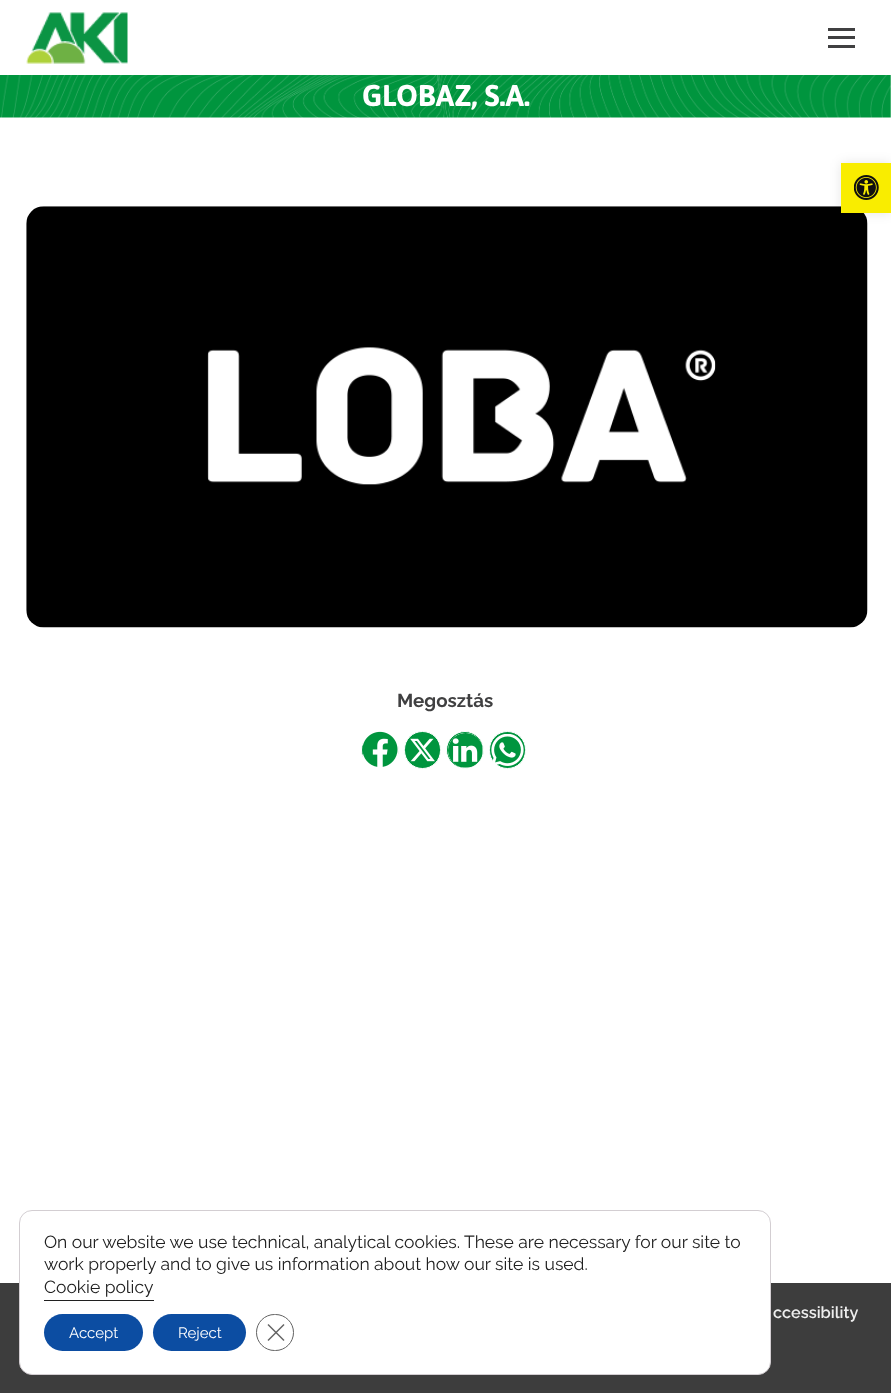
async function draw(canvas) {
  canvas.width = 891
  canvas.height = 1393
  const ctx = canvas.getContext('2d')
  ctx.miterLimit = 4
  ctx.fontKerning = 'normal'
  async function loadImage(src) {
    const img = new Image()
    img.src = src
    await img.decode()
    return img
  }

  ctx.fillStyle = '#fff'
  ctx.fillRect(0, 0, 891, 1393)
  ctx.drawImage(await loadImage('image0.png'), 26, 12, 102, 52)
  ctx.fillStyle = '#404041'
  ctx.fillRect(828, 28, 27, 3)
  ctx.fillRect(828, 36, 27, 3)
  ctx.fillRect(828, 45, 27, 3)
  ctx.drawImage(await loadImage('image1.png'), 0, 75, 891, 43)
  ctx.font = 'bold 30px Asap'
  ctx.fillStyle = '#fff'
  ctx.fillText('GLOBAZ, S.A.', 362, 106)
  ctx.drawImage(await loadImage('image2.png'), 26, 206, 842, 422)
  ctx.font = 'bold 18.75px Raleway'
  ctx.fillStyle = '#404041'
  ctx.fillText('Megosztás', 397, 707)
  ctx.fillStyle = '#00953e'
  ctx.beginPath()
  ctx.arc(380, 750, 18.5, 0, 2 * Math.PI)
  ctx.fill()
  ctx.strokeStyle = '#fff'
  ctx.stroke()
  ctx.fillStyle = '#fff'
  ctx.fillRect(363, 731, 35, 38)
  ctx.drawImage(await loadImage('image3.png'), 363, 731, 35, 36)
  ctx.fillStyle = '#00953e'
  ctx.beginPath()
  ctx.roundRect(404.5, 731.5, 36, 37, 18)
  ctx.fill()
  ctx.stroke()
  ctx.drawImage(await loadImage('image4.png'), 410, 738, 25, 24)
  ctx.beginPath()
  ctx.arc(465, 750, 18.5, 0, 2 * Math.PI)
  ctx.fill()
  ctx.stroke()
  ctx.fillStyle = '#fff'
  ctx.beginPath()
  ctx.arc(465.5, 750.5, 17.5, 0, 2 * Math.PI)
  ctx.fill()
  ctx.drawImage(await loadImage('image5.png'), 448, 733, 35, 35)
  ctx.fillStyle = '#00953e'
  ctx.beginPath()
  ctx.roundRect(489.5, 731.5, 36, 37, 18)
  ctx.fill()
  ctx.stroke()
  ctx.drawImage(await loadImage('image6.png'), 491, 734, 33, 32)
  ctx.fillStyle = '#3d3d3d'
  ctx.fillRect(0, 1283, 891, 110)
  ctx.font = '600 16.25px Raleway'
  ctx.fillStyle = '#eee'
  ctx.fillText('ccessibility', 773, 1318)
  ctx.fillStyle = '#0000001a'
  ctx.filter = 'blur(6px)'
  ctx.beginPath()
  ctx.rect(841, 163, 50, 50)
  ctx.fill()
  ctx.filter = 'none'
  ctx.fillStyle = '#f9ed00'
  ctx.fillRect(841, 163, 50, 50)
  ctx.drawImage(await loadImage('image7.png'), 854, 175, 25, 25)
  ctx.fillStyle = '#fff'
  ctx.beginPath()
  ctx.roundRect(19.5, 1210.5, 751, 164, 12.5)
  ctx.fill()
  ctx.strokeStyle = '#d3ced2'
  ctx.stroke()
  ctx.font = '17.5px Raleway'
  ctx.fillStyle = '#202020'
  ctx.fillText('On our website we use technical, analytical cookies. These are necessary for our site to', 44, 1248)
  ctx.fillText('work properly and to give us information about how our site is used.', 44, 1270)
  ctx.fillText('Cookie policy', 44, 1293)
  ctx.fillRect(44, 1300, 110, 1)
  ctx.fillStyle = '#0c4da2'
  ctx.beginPath()
  ctx.roundRect(44, 1314, 99, 37, 18.5)
  ctx.fill()
  ctx.font = '15px Raleway'
  ctx.fillStyle = '#fff'
  ctx.fillText('Accept', 69, 1338)
  ctx.fillStyle = '#0c4da2'
  ctx.beginPath()
  ctx.roundRect(153, 1314, 93, 37, 18.5)
  ctx.fill()
  ctx.fillStyle = '#fff'
  ctx.fillText('Reject', 178, 1338)
  ctx.beginPath()
  ctx.roundRect(256.5, 1314.5, 37, 36, 18)
  ctx.strokeStyle = '#626262'
  ctx.stroke()
  ctx.fillStyle = '#626262'
  ctx.beginPath()
  ctx.moveTo(283.5, 1324)
  ctx.lineTo(284.5, 1325)
  ctx.lineTo(268.5, 1341)
  ctx.lineTo(267.5, 1340)
  ctx.closePath()
  ctx.fill()
  ctx.beginPath()
  ctx.moveTo(267.5, 1325)
  ctx.lineTo(268.5, 1324)
  ctx.lineTo(284.5, 1340)
  ctx.lineTo(283.5, 1341)
  ctx.closePath()
  ctx.fill()
}

draw(document.querySelector('canvas'))
